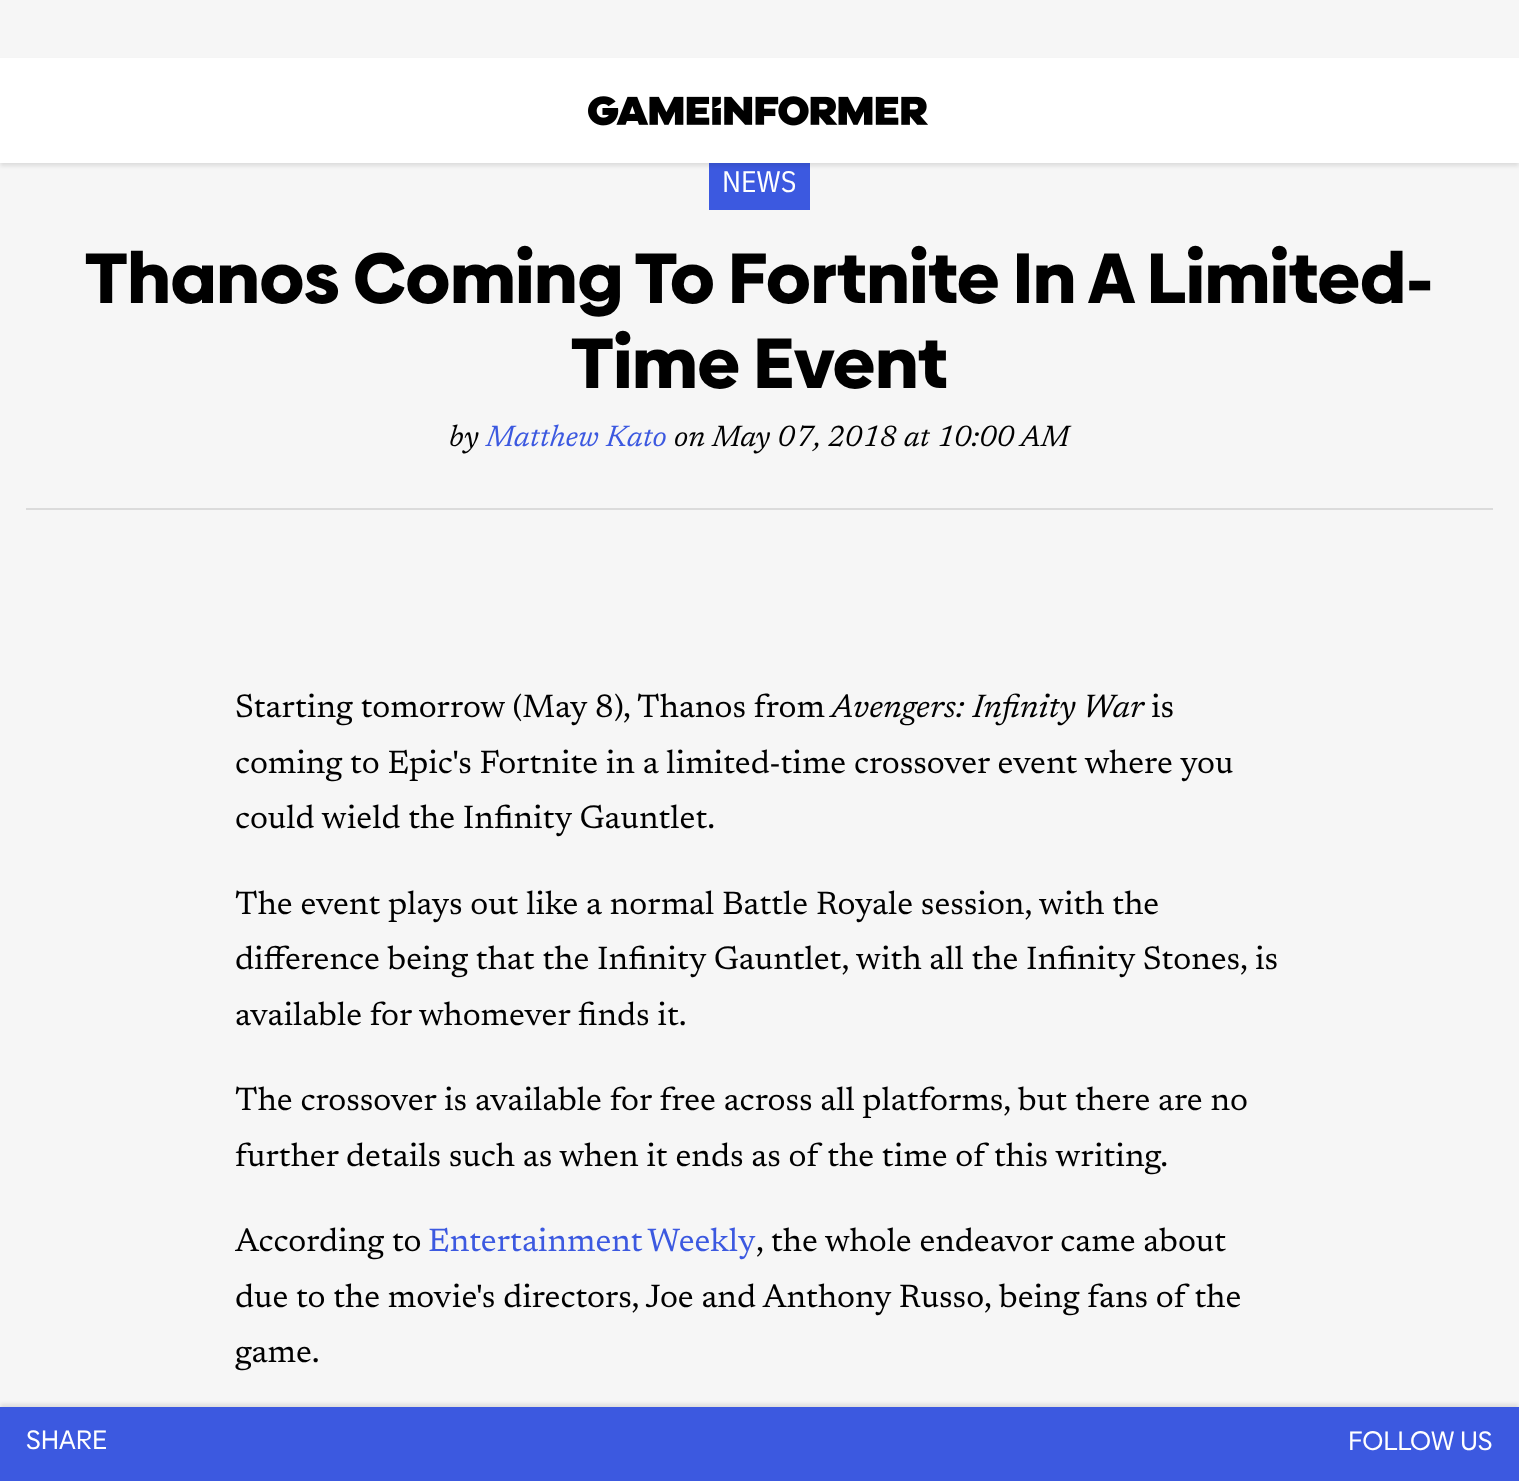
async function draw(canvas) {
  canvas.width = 1519
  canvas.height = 1481
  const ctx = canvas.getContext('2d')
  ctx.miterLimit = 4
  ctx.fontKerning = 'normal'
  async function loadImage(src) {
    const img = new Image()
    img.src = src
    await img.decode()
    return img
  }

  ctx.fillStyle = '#f6f6f6'
  ctx.fillRect(0, 0, 1519, 1481)
  ctx.fillStyle = '#3c59e0'
  ctx.fillRect(709, 163, 101, 47)
  ctx.fillStyle = '#0000001a'
  ctx.filter = 'blur(2px)'
  ctx.beginPath()
  ctx.rect(0, 61, 1519, 105)
  ctx.fill()
  ctx.filter = 'none'
  ctx.fillStyle = '#fff'
  ctx.fillRect(0, 58, 1519, 105)
  ctx.drawImage(await loadImage('image0.png'), 588, 96, 340, 30)
  ctx.font = '29.75px IBM Plex Sans Condensed'
  ctx.fillText('NEWS', 722, 192)
  ctx.font = '900 71.4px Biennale'
  ctx.fillStyle = '#000'
  ctx.fillText('Thanos Coming To Fortnite In A Limited-', 85, 303)
  ctx.fillText('Time Event', 571, 388)
  ctx.fillStyle = '#dbdbdb'
  ctx.fillRect(26, 508, 1467, 2)
  ctx.font = 'italic 29.75px Newsreader'
  ctx.fillStyle = '#000'
  ctx.fillText('by', 449, 446)
  ctx.fillStyle = '#3c59e0'
  ctx.fillText('Matthew Kato', 486, 446)
  ctx.fillStyle = '#000'
  ctx.fillText('on May 07, 2018 at 10:00 AM', 674, 446)
  ctx.font = '32.75px Newsreader'
  ctx.fillText('Starting tomorrow (May 8), Thanos from', 235, 717)
  ctx.font = 'italic 32.75px Newsreader'
  ctx.fillText('Avengers: Infinity War', 831, 717)
  ctx.font = '32.75px Newsreader'
  ctx.fillText('is', 1151, 717)
  ctx.fillText('coming to Epic\'s Fortnite in a limited-time crossover event where you', 235, 773)
  ctx.fillText('could wield the Infinity Gauntlet.', 235, 828)
  ctx.fillText('The event plays out like a normal Battle Royale session, with the', 235, 914)
  ctx.fillText('difference being that the Infinity Gauntlet, with all the Infinity Stones, is', 235, 969)
  ctx.fillText('available for whomever finds it.', 235, 1025)
  ctx.fillText('The crossover is available for free across all platforms, but there are no', 235, 1110)
  ctx.fillText('further details such as when it ends as of the time of this writing.', 235, 1166)
  ctx.fillText('According to', 235, 1251)
  ctx.wordSpacing = '-2px'
  ctx.fillStyle = '#3c59e0'
  ctx.fillText('Entertainment Weekly', 428, 1251)
  ctx.wordSpacing = '0px'
  ctx.fillStyle = '#000'
  ctx.fillText(', the whole endeavor came about', 756, 1251)
  ctx.fillText('due to the movie\'s directors, Joe and Anthony Russo, being fans of the', 235, 1307)
  ctx.fillText('game.', 235, 1362)
  ctx.fillStyle = '#0000001a'
  ctx.filter = 'blur(2px)'
  ctx.beginPath()
  ctx.rect(0, 1404, 1519, 75)
  ctx.fill()
  ctx.filter = 'none'
  ctx.fillStyle = '#3c59e0'
  ctx.fillRect(0, 1407, 1519, 74)
  ctx.font = '26.75px Biennale'
  ctx.fillStyle = '#fff'
  ctx.fillText('SHARE', 26, 1449)
  ctx.fillText('FOLLOW US', 1348, 1450)
}

draw(document.querySelector('canvas'))
